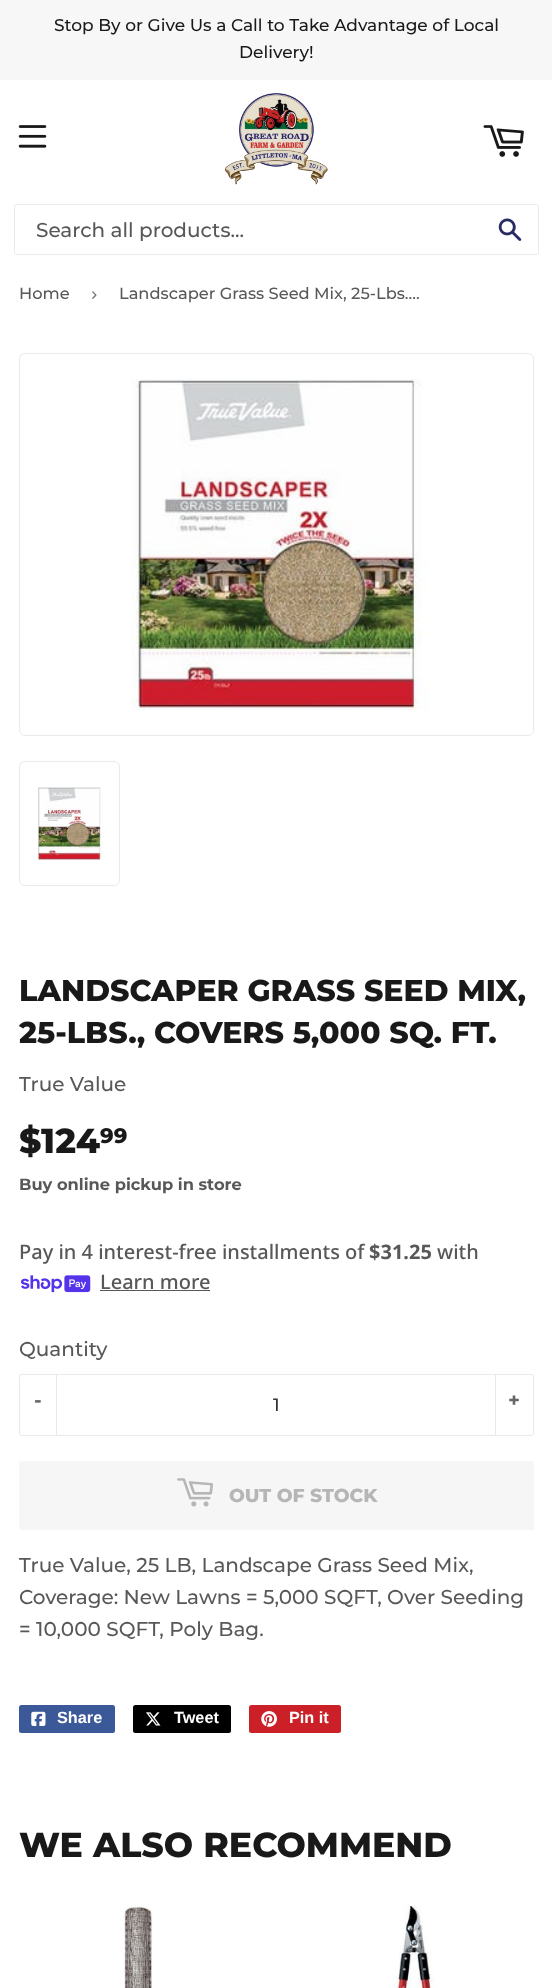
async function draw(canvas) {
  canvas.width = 552
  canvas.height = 1988
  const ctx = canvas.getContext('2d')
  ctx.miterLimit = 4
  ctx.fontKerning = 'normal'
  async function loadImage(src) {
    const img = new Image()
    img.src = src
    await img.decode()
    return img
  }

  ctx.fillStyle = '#fff'
  ctx.fillRect(0, 0, 552, 1988)
  ctx.fillStyle = '#f7f7f7'
  ctx.fillRect(0, 0, 552, 80)
  ctx.font = '500 17px Montserrat'
  ctx.fillStyle = '#191919'
  ctx.fillText('Stop By or Give Us a Call to Take Advantage of Local', 54, 31)
  ctx.fillText('Delivery!', 239, 58)
  ctx.drawImage(await loadImage('image0.png'), 18, 125, 29, 23)
  ctx.drawImage(await loadImage('image1.png'), 225, 93, 103, 92)
  ctx.drawImage(await loadImage('image2.png'), 483, 125, 41, 32)
  ctx.beginPath()
  ctx.roundRect(14.5, 204.5, 524, 50, 2)
  ctx.strokeStyle = '#eaeaea'
  ctx.stroke()
  ctx.font = '500 20px Montserrat'
  ctx.fillStyle = '#585858'
  ctx.fillText('Search all products...', 36, 237)
  ctx.drawImage(await loadImage('image3.png'), 498, 218, 24, 23)
  ctx.font = '500 16.25px Montserrat'
  ctx.fillText('Home', 19, 299)
  ctx.font = '18.75px Liberation Sans'
  ctx.fillStyle = '#767676'
  ctx.fillText('›', 91, 300)
  ctx.font = '500 16.25px Montserrat'
  ctx.fillStyle = '#585858'
  ctx.fillText('Landscaper Grass Seed Mix, 25-Lbs.…', 119, 299)
  ctx.beginPath()
  ctx.roundRect(19.5, 353.5, 514, 382, 5.5)
  ctx.stroke()
  ctx.drawImage(await loadImage('image4.png'), 131, 379, 298, 331)
  ctx.beginPath()
  ctx.roundRect(19.5, 761.5, 100, 124, 5.5)
  ctx.stroke()
  ctx.drawImage(await loadImage('image5.png'), 37, 787, 66, 73)
  ctx.font = '800 30px Montserrat'
  ctx.fillStyle = '#191919'
  ctx.fillText('LANDSCAPER GRASS SEED MIX,', 19, 1001)
  ctx.fillText('25-LBS., COVERS 5,000 SQ. FT.', 19, 1043)
  ctx.font = '500 20px Montserrat'
  ctx.fillStyle = '#585858'
  ctx.fillText('True Value', 19, 1091)
  ctx.font = '800 34.7px Montserrat'
  ctx.fillStyle = '#191919'
  ctx.fillText('$124', 19, 1153)
  ctx.font = '800 21px Montserrat'
  ctx.fillText('99', 100, 1143)
  ctx.font = 'bold 16.25px Montserrat'
  ctx.fillStyle = '#585858'
  ctx.fillText('Buy online pickup in store', 19, 1190)
  ctx.font = '500 20px Noto Sans'
  ctx.fillText('Pay in 4 interest-free installments of', 19, 1259)
  ctx.font = 'bold 20px Noto Sans'
  ctx.fillText('$31.25', 369, 1259)
  ctx.font = '500 20px Noto Sans'
  ctx.fillText('with', 437, 1259)
  ctx.drawImage(await loadImage('image6.png'), 21, 1275, 70, 18)
  ctx.fillText('Learn more', 100, 1289)
  ctx.fillRect(100, 1290, 110, 1)
  ctx.font = '500 20px Montserrat'
  ctx.fillText('Quantity', 19, 1356)
  ctx.beginPath()
  ctx.roundRect(19.5, 1374.5, 514, 61, 2)
  ctx.strokeStyle = '#e9e9e9'
  ctx.stroke()
  ctx.fillStyle = '#e9e9e9'
  ctx.fillRect(56, 1375, 1, 60)
  ctx.font = 'bold 20px Montserrat'
  ctx.fillStyle = '#666'
  ctx.fillText('-', 34, 1407)
  ctx.font = '500 18px Montserrat'
  ctx.fillStyle = '#333'
  ctx.fillText('1', 273, 1411)
  ctx.fillStyle = '#e9e9e9'
  ctx.fillRect(495, 1375, 1, 60)
  ctx.font = 'bold 20px Montserrat'
  ctx.fillStyle = '#666'
  ctx.fillText('+', 508, 1407)
  ctx.fillStyle = '#f6f6f6'
  ctx.beginPath()
  ctx.roundRect(19, 1461, 515, 69, 2.5)
  ctx.fill()
  ctx.drawImage(await loadImage('image7.png'), 177, 1478, 36, 29)
  ctx.font = '800 18.75px Montserrat'
  ctx.fillStyle = '#b6b6b6'
  ctx.fillText('OUT OF STOCK', 229, 1502)
  ctx.font = '500 20px Montserrat'
  ctx.fillStyle = '#585858'
  ctx.fillText('True Value, 25 LB, Landscape Grass Seed Mix,', 19, 1572)
  ctx.fillText('Coverage: New Lawns = 5,000 SQFT, Over Seeding', 19, 1604)
  ctx.fillText('= 10,000 SQFT, Poly Bag.', 19, 1636)
  ctx.fillStyle = '#3b5998'
  ctx.beginPath()
  ctx.roundRect(19, 1705, 96, 28, 2.5)
  ctx.fill()
  ctx.drawImage(await loadImage('image8.png'), 31, 1711, 15, 15)
  ctx.font = 'bold 16.25px Liberation Sans'
  ctx.fillStyle = '#fff'
  ctx.fillText('Share', 57, 1723)
  ctx.fillStyle = '#000'
  ctx.beginPath()
  ctx.roundRect(133, 1705, 98, 28, 2.5)
  ctx.fill()
  ctx.drawImage(await loadImage('image9.png'), 146, 1712, 15, 14)
  ctx.fillStyle = '#fff'
  ctx.fillText('Tweet', 174, 1723)
  ctx.fillStyle = '#cb2027'
  ctx.beginPath()
  ctx.roundRect(249, 1705, 92, 28, 2.5)
  ctx.fill()
  ctx.drawImage(await loadImage('image10.png'), 261, 1711, 16, 16)
  ctx.fillStyle = '#fff'
  ctx.fillText('Pin it', 289, 1723)
  ctx.font = '800 34.7px Montserrat'
  ctx.fillStyle = '#191919'
  ctx.fillText('WE ALSO RECOMMEND', 19, 1857)
  ctx.drawImage(await loadImage('image11.png'), 123, 1906, 30, 82)
  ctx.drawImage(await loadImage('image12.png'), 394, 1906, 41, 82)
}

draw(document.querySelector('canvas'))
